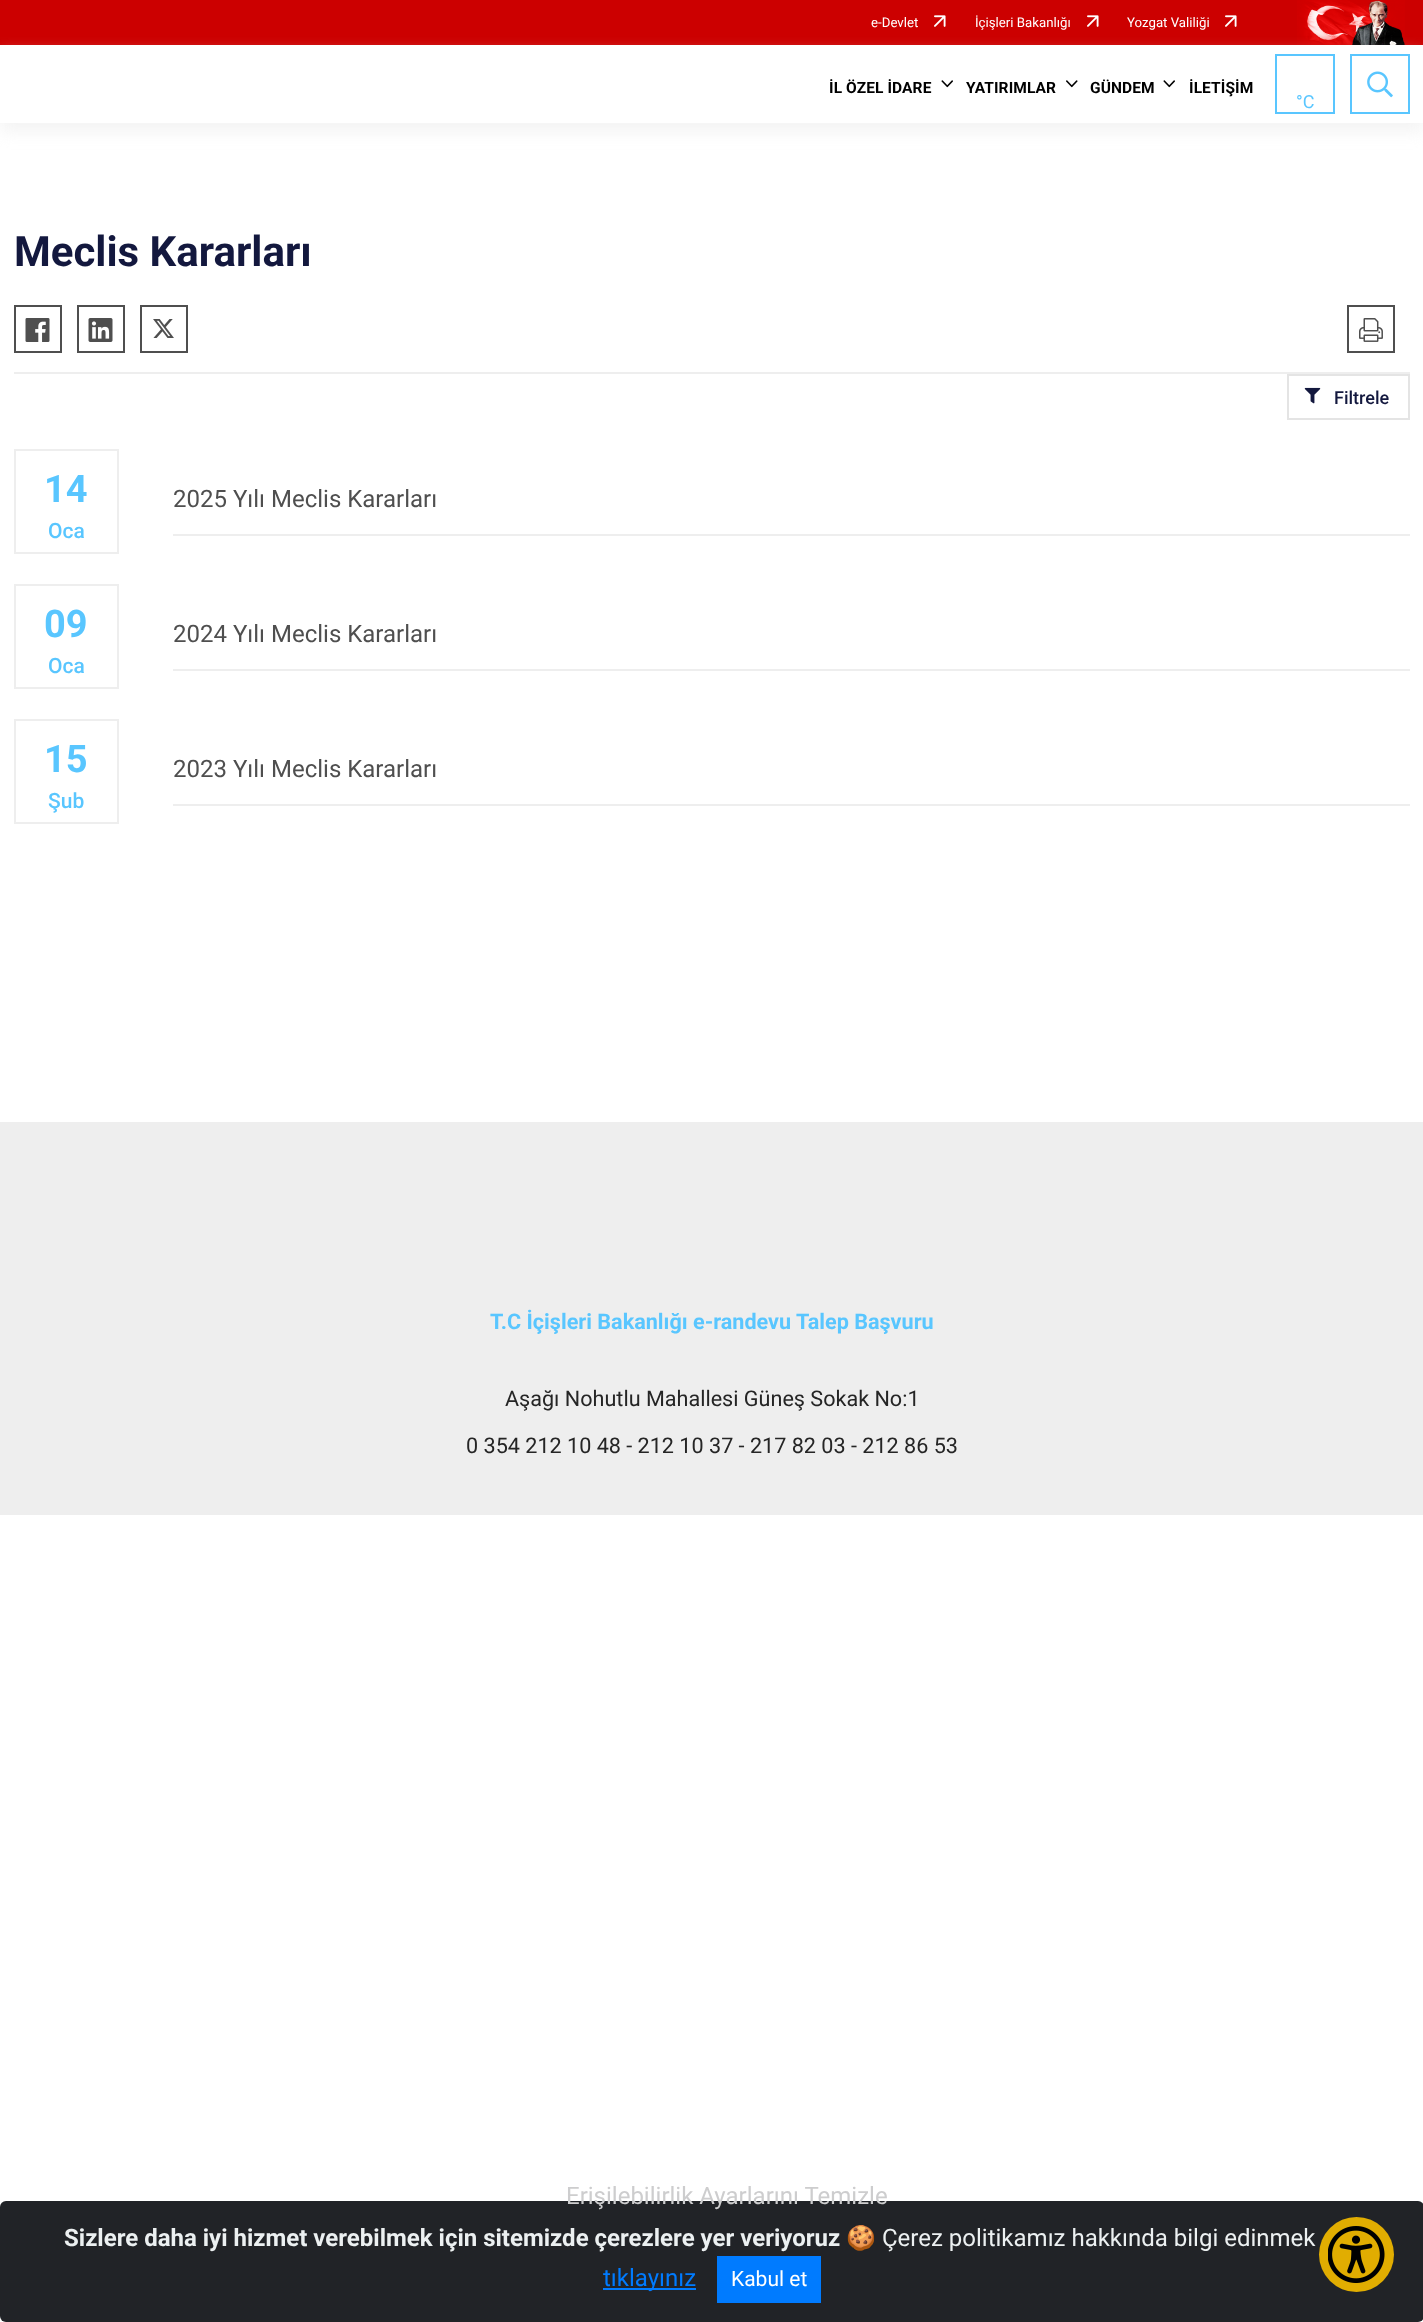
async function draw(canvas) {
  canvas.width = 1423
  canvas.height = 2322
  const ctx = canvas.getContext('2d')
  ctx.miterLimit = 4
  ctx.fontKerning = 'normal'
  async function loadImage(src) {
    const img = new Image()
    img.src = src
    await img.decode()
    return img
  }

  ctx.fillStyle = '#fff'
  ctx.fillRect(0, 0, 1423, 2322)
  ctx.fillStyle = '#c00'
  ctx.fillRect(0, 0, 1423, 45)
  ctx.font = '13.25px Roboto'
  ctx.fillStyle = '#fff'
  ctx.fillText('e-Devlet', 871, 27)
  ctx.drawImage(await loadImage('image0.png'), 934, 15, 12, 12)
  ctx.fillText('İçişleri Bakanlığı', 975, 27)
  ctx.drawImage(await loadImage('image0.png'), 1087, 15, 12, 12)
  ctx.fillText('Yozgat Valiliği', 1127, 27)
  ctx.drawImage(await loadImage('image0.png'), 1225, 15, 12, 12)
  ctx.drawImage(await loadImage('image1.png'), 1297, 0, 108, 45)
  ctx.save()
  ctx.beginPath()
  ctx.moveTo(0, 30)
  ctx.lineTo(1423, 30)
  ctx.lineTo(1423, 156)
  ctx.lineTo(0, 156)
  ctx.closePath()
  ctx.moveTo(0, 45)
  ctx.lineTo(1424, 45)
  ctx.lineTo(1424, 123)
  ctx.lineTo(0, 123)
  ctx.closePath()
  ctx.clip('evenodd')
  ctx.fillStyle = '#eeeeee9e'
  ctx.filter = 'blur(7.5px)'
  ctx.beginPath()
  ctx.rect(0, 54, 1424, 78)
  ctx.fill()
  ctx.filter = 'none'
  ctx.restore()
  ctx.letterSpacing = '0.1px'
  ctx.font = 'bold 15.5px Roboto'
  ctx.fillStyle = '#000'
  ctx.fillText('İL ÖZEL İDARE', 829, 93)
  ctx.drawImage(await loadImage('image2.png'), 941, 80, 12, 8)
  ctx.fillText('YATIRIMLAR', 966, 93)
  ctx.drawImage(await loadImage('image3.png'), 1066, 80, 12, 8)
  ctx.fillText('GÜNDEM', 1090, 93)
  ctx.drawImage(await loadImage('image2.png'), 1163, 80, 12, 8)
  ctx.fillText('İLETİŞİM', 1189, 93)
  ctx.strokeStyle = '#59c6ff'
  ctx.lineWidth = 2
  ctx.strokeRect(1276, 55, 58, 58)
  ctx.letterSpacing = '0px'
  ctx.font = '18px Roboto'
  ctx.fillStyle = '#59c6ff'
  ctx.fillText('°C', 1296, 108)
  ctx.strokeRect(1351, 55, 58, 58)
  ctx.drawImage(await loadImage('image4.png'), 1367, 71, 26, 27)
  ctx.fillStyle = '#eee'
  ctx.fillRect(14, 372, 1396, 2)
  ctx.font = 'bold 42px Roboto'
  ctx.fillStyle = '#13183e'
  ctx.fillText('Meclis Kararları', 14, 266)
  ctx.strokeStyle = '#4f4f4f'
  ctx.strokeRect(15, 306, 46, 46)
  ctx.drawImage(await loadImage('image5.png'), 25, 318, 25, 24)
  ctx.strokeRect(78, 306, 46, 46)
  ctx.drawImage(await loadImage('image6.png'), 88, 318, 25, 24)
  ctx.strokeRect(141, 306, 46, 46)
  ctx.drawImage(await loadImage('image7.png'), 153, 319, 21, 19)
  ctx.strokeRect(1348, 306, 46, 46)
  ctx.drawImage(await loadImage('image8.png'), 1359, 318, 24, 24)
  ctx.strokeStyle = '#e4e4e4'
  ctx.strokeRect(1288, 375, 121, 44)
  ctx.drawImage(await loadImage('image9.png'), 1304, 387, 17, 17)
  ctx.font = '500 18px Roboto'
  ctx.fillText('Filtrele', 1334, 404)
  ctx.strokeStyle = '#eee'
  ctx.strokeRect(15, 450, 103, 103)
  ctx.font = 'bold 38px Roboto'
  ctx.fillStyle = '#59c6ff'
  ctx.fillText('14', 44, 502)
  ctx.font = '500 21px Roboto'
  ctx.fillText('Oca', 48, 538)
  ctx.fillStyle = '#eee'
  ctx.fillRect(173, 534, 1237, 2)
  ctx.font = '24px Roboto'
  ctx.fillStyle = '#4f4f4f'
  ctx.fillText('2025 Yılı Meclis Kararları', 173, 507)
  ctx.strokeRect(15, 585, 103, 103)
  ctx.font = 'bold 38px Roboto'
  ctx.fillStyle = '#59c6ff'
  ctx.fillText('09', 44, 637)
  ctx.font = '500 21px Roboto'
  ctx.fillText('Oca', 48, 673)
  ctx.fillStyle = '#eee'
  ctx.fillRect(173, 669, 1237, 2)
  ctx.font = '24px Roboto'
  ctx.fillStyle = '#4f4f4f'
  ctx.fillText('2024 Yılı Meclis Kararları', 173, 642)
  ctx.strokeRect(15, 720, 103, 103)
  ctx.font = 'bold 38px Roboto'
  ctx.fillStyle = '#59c6ff'
  ctx.fillText('15', 44, 772)
  ctx.font = '500 21px Roboto'
  ctx.fillText('Şub', 48, 808)
  ctx.fillStyle = '#eee'
  ctx.fillRect(173, 804, 1237, 2)
  ctx.font = '24px Roboto'
  ctx.fillStyle = '#4f4f4f'
  ctx.fillText('2023 Yılı Meclis Kararları', 173, 777)
  ctx.fillStyle = '#eee'
  ctx.fillRect(0, 1122, 1423, 393)
  ctx.font = 'bold 21.6px Roboto'
  ctx.fillStyle = '#59c6ff'
  ctx.fillText('T.C İçişleri Bakanlığı e-randevu Talep Başvuru', 490, 1329)
  ctx.font = '21.6px Roboto'
  ctx.fillStyle = '#252525'
  ctx.fillText('Aşağı Nohutlu Mahallesi Güneş Sokak No:1', 505, 1406)
  ctx.fillText('0 354 212 10 48 - 212 10 37 - 217 82 03 - 212 86 53', 466, 1453)
  ctx.fillStyle = '#212327'
  ctx.beginPath()
  ctx.roundRect(0, 2201, 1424, 121, 6)
  ctx.fill()
  ctx.font = '24px Roboto'
  ctx.fillStyle = '#cdcdce'
  ctx.fillText('Erişilebilirlik Ayarlarını Temizle', 566, 2204)
  ctx.fillStyle = '#e1ad01'
  ctx.beginPath()
  ctx.arc(1356.5, 2254.5, 37.5, 0, 2 * Math.PI)
  ctx.fill()
  ctx.drawImage(await loadImage('image10.png'), 1328, 2226, 57, 57)
  ctx.font = 'bold 24px Roboto'
  ctx.fillStyle = '#ecf0f1'
  ctx.fillText('Sizlere daha iyi hizmet verebilmek için sitemizde çerezlere yer veriyoruz', 64, 2246)
  ctx.font = '24px Noto Color Emoji'
  ctx.fillText('🍪', 846, 2246)
  ctx.font = '24px Roboto'
  ctx.fillText('Çerez politikamız hakkında bilgi edinmek', 882, 2246)
  ctx.fillStyle = '#007bff'
  ctx.fillRect(603, 2288, 93, 2)
  ctx.fillText('tıklayınız', 603, 2286)
  ctx.fillRect(717, 2256, 104, 47)
  ctx.font = '21px Roboto'
  ctx.fillStyle = '#fff'
  ctx.fillText('Kabul et', 731, 2286)
}

draw(document.querySelector('canvas'))
